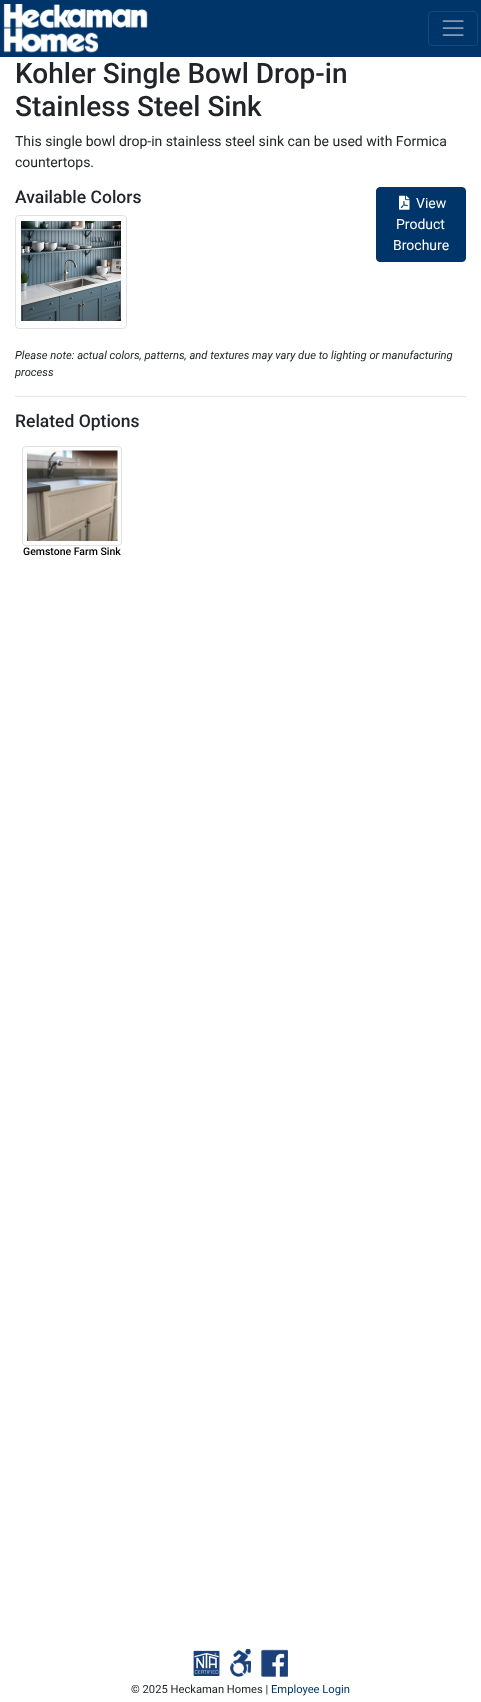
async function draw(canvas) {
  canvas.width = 481
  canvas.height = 1702
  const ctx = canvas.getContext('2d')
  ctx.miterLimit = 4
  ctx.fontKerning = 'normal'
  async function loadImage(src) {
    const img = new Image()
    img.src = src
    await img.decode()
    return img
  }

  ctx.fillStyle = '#fff'
  ctx.fillRect(0, 0, 481, 1702)
  ctx.fillStyle = '#003569'
  ctx.fillRect(0, 0, 481, 57)
  ctx.drawImage(await loadImage('image0.png'), 3, 4, 145, 49)
  ctx.beginPath()
  ctx.roundRect(428.5, 11.5, 49, 34, 3.5)
  ctx.strokeStyle = '#1a4978'
  ctx.stroke()
  ctx.drawImage(await loadImage('image1.png'), 442, 20, 22, 16)
  ctx.font = '500 28px Roboto'
  ctx.fillStyle = '#212529'
  ctx.fillText('Kohler Single Bowl Drop-in', 15, 83)
  ctx.fillText('Stainless Steel Sink', 15, 116)
  ctx.font = '14px Roboto'
  ctx.fillText('This single bowl drop-in stainless steel sink can be used with Formica', 15, 146)
  ctx.fillText('countertops.', 15, 167)
  ctx.font = '500 17.5px Roboto'
  ctx.fillText('Available Colors', 15, 203)
  ctx.beginPath()
  ctx.roundRect(15.5, 215.5, 111, 113, 3.5)
  ctx.strokeStyle = '#dee2e6'
  ctx.stroke()
  ctx.drawImage(await loadImage('image2.png'), 21, 221, 100, 100)
  ctx.fillStyle = '#003569'
  ctx.beginPath()
  ctx.roundRect(376.5, 187.5, 89, 74, 3.5)
  ctx.fill()
  ctx.strokeStyle = '#003569'
  ctx.stroke()
  ctx.drawImage(await loadImage('image3.png'), 399, 195, 11, 15)
  ctx.font = '14px Roboto'
  ctx.fillStyle = '#fff'
  ctx.fillText('View', 416, 208)
  ctx.fillText('Product', 396, 229)
  ctx.fillText('Brochure', 393, 250)
  ctx.font = 'italic 11.2px Roboto'
  ctx.fillStyle = '#212529'
  ctx.fillText('Please note: actual colors, patterns, and textures may vary due to lighting or manufacturing', 15, 359)
  ctx.fillText('process', 15, 376)
  ctx.fillStyle = '#e6e6e6'
  ctx.fillRect(15, 396, 451, 1)
  ctx.font = '500 17.5px Roboto'
  ctx.fillStyle = '#212529'
  ctx.fillText('Related Options', 15, 427)
  ctx.beginPath()
  ctx.roundRect(22.5, 446.5, 99, 99, 3.5)
  ctx.strokeStyle = '#dee2e6'
  ctx.stroke()
  ctx.drawImage(await loadImage('image4.png'), 27, 450, 91, 91)
  ctx.font = '500 10.5px Roboto'
  ctx.fillStyle = '#000'
  ctx.fillText('Gemstone Farm Sink', 23, 555)
  ctx.drawImage(await loadImage('image5.png'), 193, 1650, 27, 26)
  ctx.drawImage(await loadImage('image6.png'), 230, 1649, 21, 28)
  ctx.drawImage(await loadImage('image7.png'), 261, 1649, 27, 28)
  ctx.font = '11.2px Roboto'
  ctx.fillStyle = '#212529'
  ctx.fillText('© 2025 Heckaman Homes |', 131, 1693)
  ctx.fillStyle = '#003569'
  ctx.fillText('Employee Login', 271, 1693)
}

draw(document.querySelector('canvas'))
